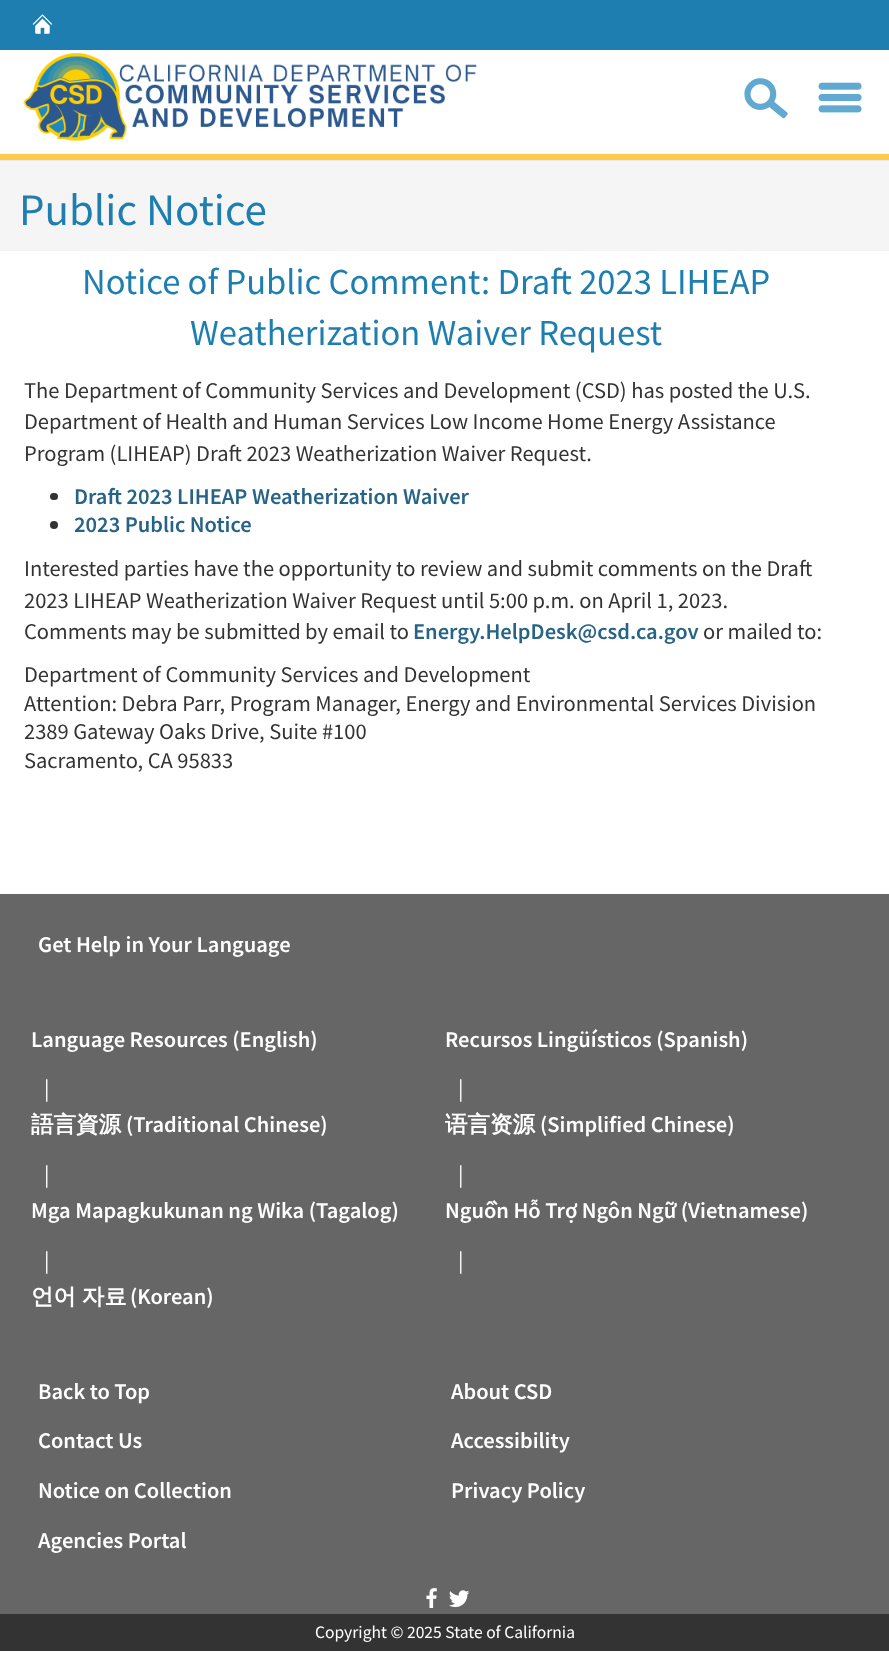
async function draw(canvas) {
  canvas.width = 889
  canvas.height = 1656
  const ctx = canvas.getContext('2d')
  ctx.miterLimit = 4
  ctx.fontKerning = 'normal'
  async function loadImage(src) {
    const img = new Image()
    img.src = src
    await img.decode()
    return img
  }

  ctx.fillStyle = '#fff'
  ctx.fillRect(0, 0, 889, 1656)
  ctx.fillStyle = '#1d7eaf'
  ctx.fillRect(0, 0, 889, 50)
  ctx.drawImage(await loadImage('image0.png'), 32, 14, 21, 20)
  ctx.drawImage(await loadImage('image1.png'), 23, 53, 454, 88)
  ctx.drawImage(await loadImage('image2.png'), 744, 78, 44, 41)
  ctx.drawImage(await loadImage('image3.png'), 818, 82, 44, 31)
  ctx.fillStyle = '#ffca4a'
  ctx.fillRect(0, 154, 889, 6)
  ctx.fillStyle = '#f5f5f5'
  ctx.fillRect(0, 161, 889, 89)
  ctx.fillStyle = '#e9e9e9'
  ctx.fillRect(0, 160, 889, 1)
  ctx.font = '45px Source Sans Pro'
  ctx.fillStyle = '#1d7eaf'
  ctx.fillText('Public Notice', 19, 225)
  ctx.fillStyle = '#f2f2f2'
  ctx.fillRect(0, 250, 889, 1)
  ctx.font = '36.6px Source Sans Pro'
  ctx.fillStyle = '#1d7eaf'
  ctx.fillText('Notice of Public Comment: Draft 2023 LIHEAP', 82, 294)
  ctx.fillText('Weatherization Waiver Request', 190, 345)
  ctx.font = '22.5px Source Sans Pro'
  ctx.fillStyle = '#333'
  ctx.fillText('The Department of Community Services and Development (CSD) has posted the U.S.', 24, 398)
  ctx.fillText('Department of Health and Human Services Low Income Home Energy Assistance', 24, 429)
  ctx.fillText('Program (LIHEAP) Draft 2023 Weatherization Waiver Request.', 24, 461)
  ctx.beginPath()
  ctx.roundRect(50, 493, 8, 7, 3.5)
  ctx.fill()
  ctx.font = '600 22.5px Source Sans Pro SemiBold'
  ctx.fillStyle = '#276386'
  ctx.fillText('Draft 2023 LIHEAP Weatherization Waiver', 74, 504)
  ctx.fillStyle = '#333'
  ctx.beginPath()
  ctx.arc(54, 525, 4, 0, 2 * Math.PI)
  ctx.fill()
  ctx.fillStyle = '#276386'
  ctx.fillText('2023 Public Notice', 74, 532)
  ctx.font = '22.5px Source Sans Pro'
  ctx.fillStyle = '#333'
  ctx.fillText('Interested parties have the opportunity to review and submit comments on the Draft', 24, 576)
  ctx.fillText('2023 LIHEAP Weatherization Waiver Request until 5:00 p.m. on April 1, 2023.', 24, 608)
  ctx.fillText('Comments may be submitted by email to', 24, 639)
  ctx.font = '600 22.5px Source Sans Pro SemiBold'
  ctx.fillStyle = '#276386'
  ctx.fillText('Energy.HelpDesk@csd.ca.gov', 413, 639)
  ctx.font = '22.5px Source Sans Pro'
  ctx.fillStyle = '#333'
  ctx.fillText('or mailed to:', 703, 639)
  ctx.fillText('Department of Community Services and Development', 24, 682)
  ctx.fillText('Attention: Debra Parr, Program Manager, Energy and Environmental Services Division', 24, 711)
  ctx.fillText('2389 Gateway Oaks Drive, Suite #100', 24, 739)
  ctx.fillText('Sacramento, CA 95833', 24, 768)
  ctx.fillStyle = '#666'
  ctx.fillRect(0, 894, 889, 720)
  ctx.font = '600 22.5px Source Sans Pro SemiBold'
  ctx.fillStyle = '#fff'
  ctx.fillText('Get Help in Your Language', 38, 952)
  ctx.fillText('Language Resources (English)', 31, 1047)
  ctx.font = '22.5px Source Sans Pro'
  ctx.fillText('|', 44, 1096)
  ctx.font = '600 22.5px Source Sans Pro SemiBold'
  ctx.fillText('Recursos Lingüísticos (Spanish)', 445, 1047)
  ctx.font = '22.5px Source Sans Pro'
  ctx.fillText('|', 458, 1096)
  ctx.font = 'bold 22.5px WenQuanYi Zen Hei'
  ctx.fillText('語言資源', 31, 1132)
  ctx.font = '600 22.5px Source Sans Pro SemiBold'
  ctx.fillText('(Traditional Chinese)', 126, 1132)
  ctx.font = '22.5px Source Sans Pro'
  ctx.fillText('|', 44, 1182)
  ctx.font = 'bold 22.5px WenQuanYi Zen Hei'
  ctx.fillText('语言资源', 445, 1132)
  ctx.font = '600 22.5px Source Sans Pro SemiBold'
  ctx.fillText('(Simplified Chinese)', 540, 1132)
  ctx.font = '22.5px Source Sans Pro'
  ctx.fillText('|', 458, 1182)
  ctx.font = '600 22.5px Source Sans Pro SemiBold'
  ctx.fillText('Mga Mapagkukunan ng Wika (Tagalog)', 31, 1218)
  ctx.font = '22.5px Source Sans Pro'
  ctx.fillText('|', 44, 1268)
  ctx.font = '600 22.5px Source Sans Pro SemiBold'
  ctx.fillText('Nguồn Hỗ Trợ Ngôn Ngữ (Vietnamese)', 445, 1218)
  ctx.font = '22.5px Source Sans Pro'
  ctx.fillText('|', 458, 1268)
  ctx.wordSpacing = '-1px'
  ctx.font = 'bold 22.5px WenQuanYi Zen Hei'
  ctx.fillText('언어 자료', 31, 1304)
  ctx.wordSpacing = '0px'
  ctx.font = '600 22.5px Source Sans Pro SemiBold'
  ctx.fillText('(Korean)', 130, 1304)
  ctx.fillText('Back to Top', 38, 1399)
  ctx.fillText('About CSD', 451, 1399)
  ctx.fillText('Contact Us', 38, 1448)
  ctx.fillText('Accessibility', 451, 1448)
  ctx.fillText('Notice on Collection', 38, 1498)
  ctx.fillText('Privacy Policy', 451, 1498)
  ctx.fillText('Agencies Portal', 38, 1548)
  ctx.drawImage(await loadImage('image4.png'), 426, 1588, 11, 20)
  ctx.drawImage(await loadImage('image5.png'), 449, 1590, 21, 18)
  ctx.fillStyle = '#333'
  ctx.fillRect(0, 1614, 889, 37)
  ctx.font = '17.5px Source Sans Pro'
  ctx.fillStyle = '#fff'
  ctx.fillText('Copyright © 2025 State of California', 315, 1638)
}

draw(document.querySelector('canvas'))
